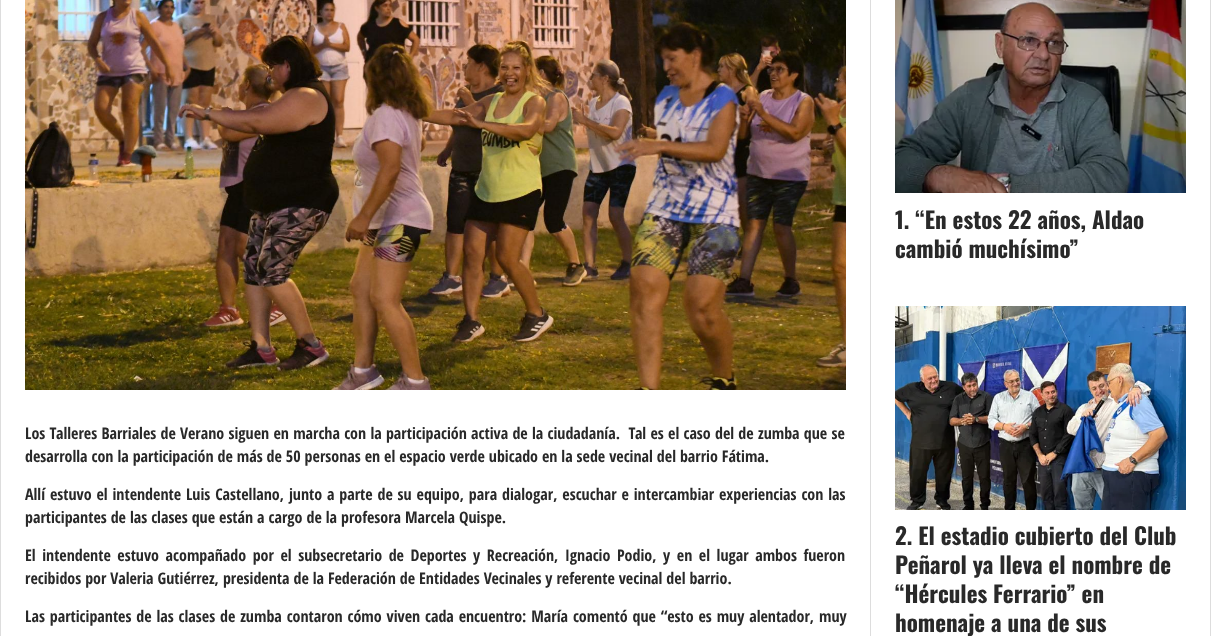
async function draw(canvas) {
  canvas.width = 1211
  canvas.height = 636
  const ctx = canvas.getContext('2d')
  ctx.miterLimit = 4
  ctx.fontKerning = 'normal'
  async function loadImage(src) {
    const img = new Image()
    img.src = src
    await img.decode()
    return img
  }

  ctx.fillStyle = '#fff'
  ctx.fillRect(0, 0, 1211, 636)
  ctx.strokeStyle = '#ddd'
  ctx.strokeRect(0.5, -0.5, 1210, 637)
  ctx.drawImage(await loadImage('image0.png'), 25, 0, 821, 390)
  ctx.wordSpacing = '0.3px'
  ctx.font = 'bold 16px Open Sans Condensed'
  ctx.fillStyle = '#292929'
  ctx.fillText('Los Talleres Barriales de Verano siguen en marcha con la participación activa de la ciudadanía.  Tal es el caso del de zumba que se', 25, 439)
  ctx.wordSpacing = '0px'
  ctx.fillText('desarrolla con la participación de más de 50 personas en el espacio verde ubicado en la sede vecinal del barrio Fátima.', 25, 462)
  ctx.wordSpacing = '0.9px'
  ctx.fillText('Allí estuvo el intendente Luis Castellano, junto a parte de su equipo, para dialogar, escuchar e intercambiar experiencias con las', 25, 500)
  ctx.wordSpacing = '0px'
  ctx.fillText('participantes de las clases que están a cargo de la profesora Marcela Quispe.', 25, 523)
  ctx.wordSpacing = '2.6px'
  ctx.fillText('El intendente estuvo acompañado por el subsecretario de Deportes y Recreación, Ignacio Podio, y en el lugar ambos fueron', 25, 561)
  ctx.wordSpacing = '0px'
  ctx.fillText('recibidos por Valeria Gutiérrez, presidenta de la Federación de Entidades Vecinales y referente vecinal del barrio.', 25, 584)
  ctx.wordSpacing = '0.9px'
  ctx.fillText('Las participantes de las clases de zumba contaron cómo viven cada encuentro: María comentó que “esto es muy alentador, muy', 25, 622)
  ctx.fillStyle = '#ddd'
  ctx.fillRect(870, 0, 1, 636)
  ctx.drawImage(await loadImage('image1.png'), 895, 0, 291, 193)
  ctx.wordSpacing = '0px'
  ctx.font = 'bold 23px Oswald'
  ctx.fillStyle = '#292929'
  ctx.fillText('1. “En estos 22 años, Aldao', 895, 229)
  ctx.fillText('cambió muchísimo”', 895, 258)
  ctx.drawImage(await loadImage('image2.png'), 895, 306, 291, 204)
  ctx.fillText('2. El estadio cubierto del Club', 895, 545)
  ctx.fillText('Peñarol ya lleva el nombre de', 895, 574)
  ctx.fillText('“Hércules Ferrario” en', 895, 603)
  ctx.fillText('homenaje a una de sus', 895, 632)
}

draw(document.querySelector('canvas'))
